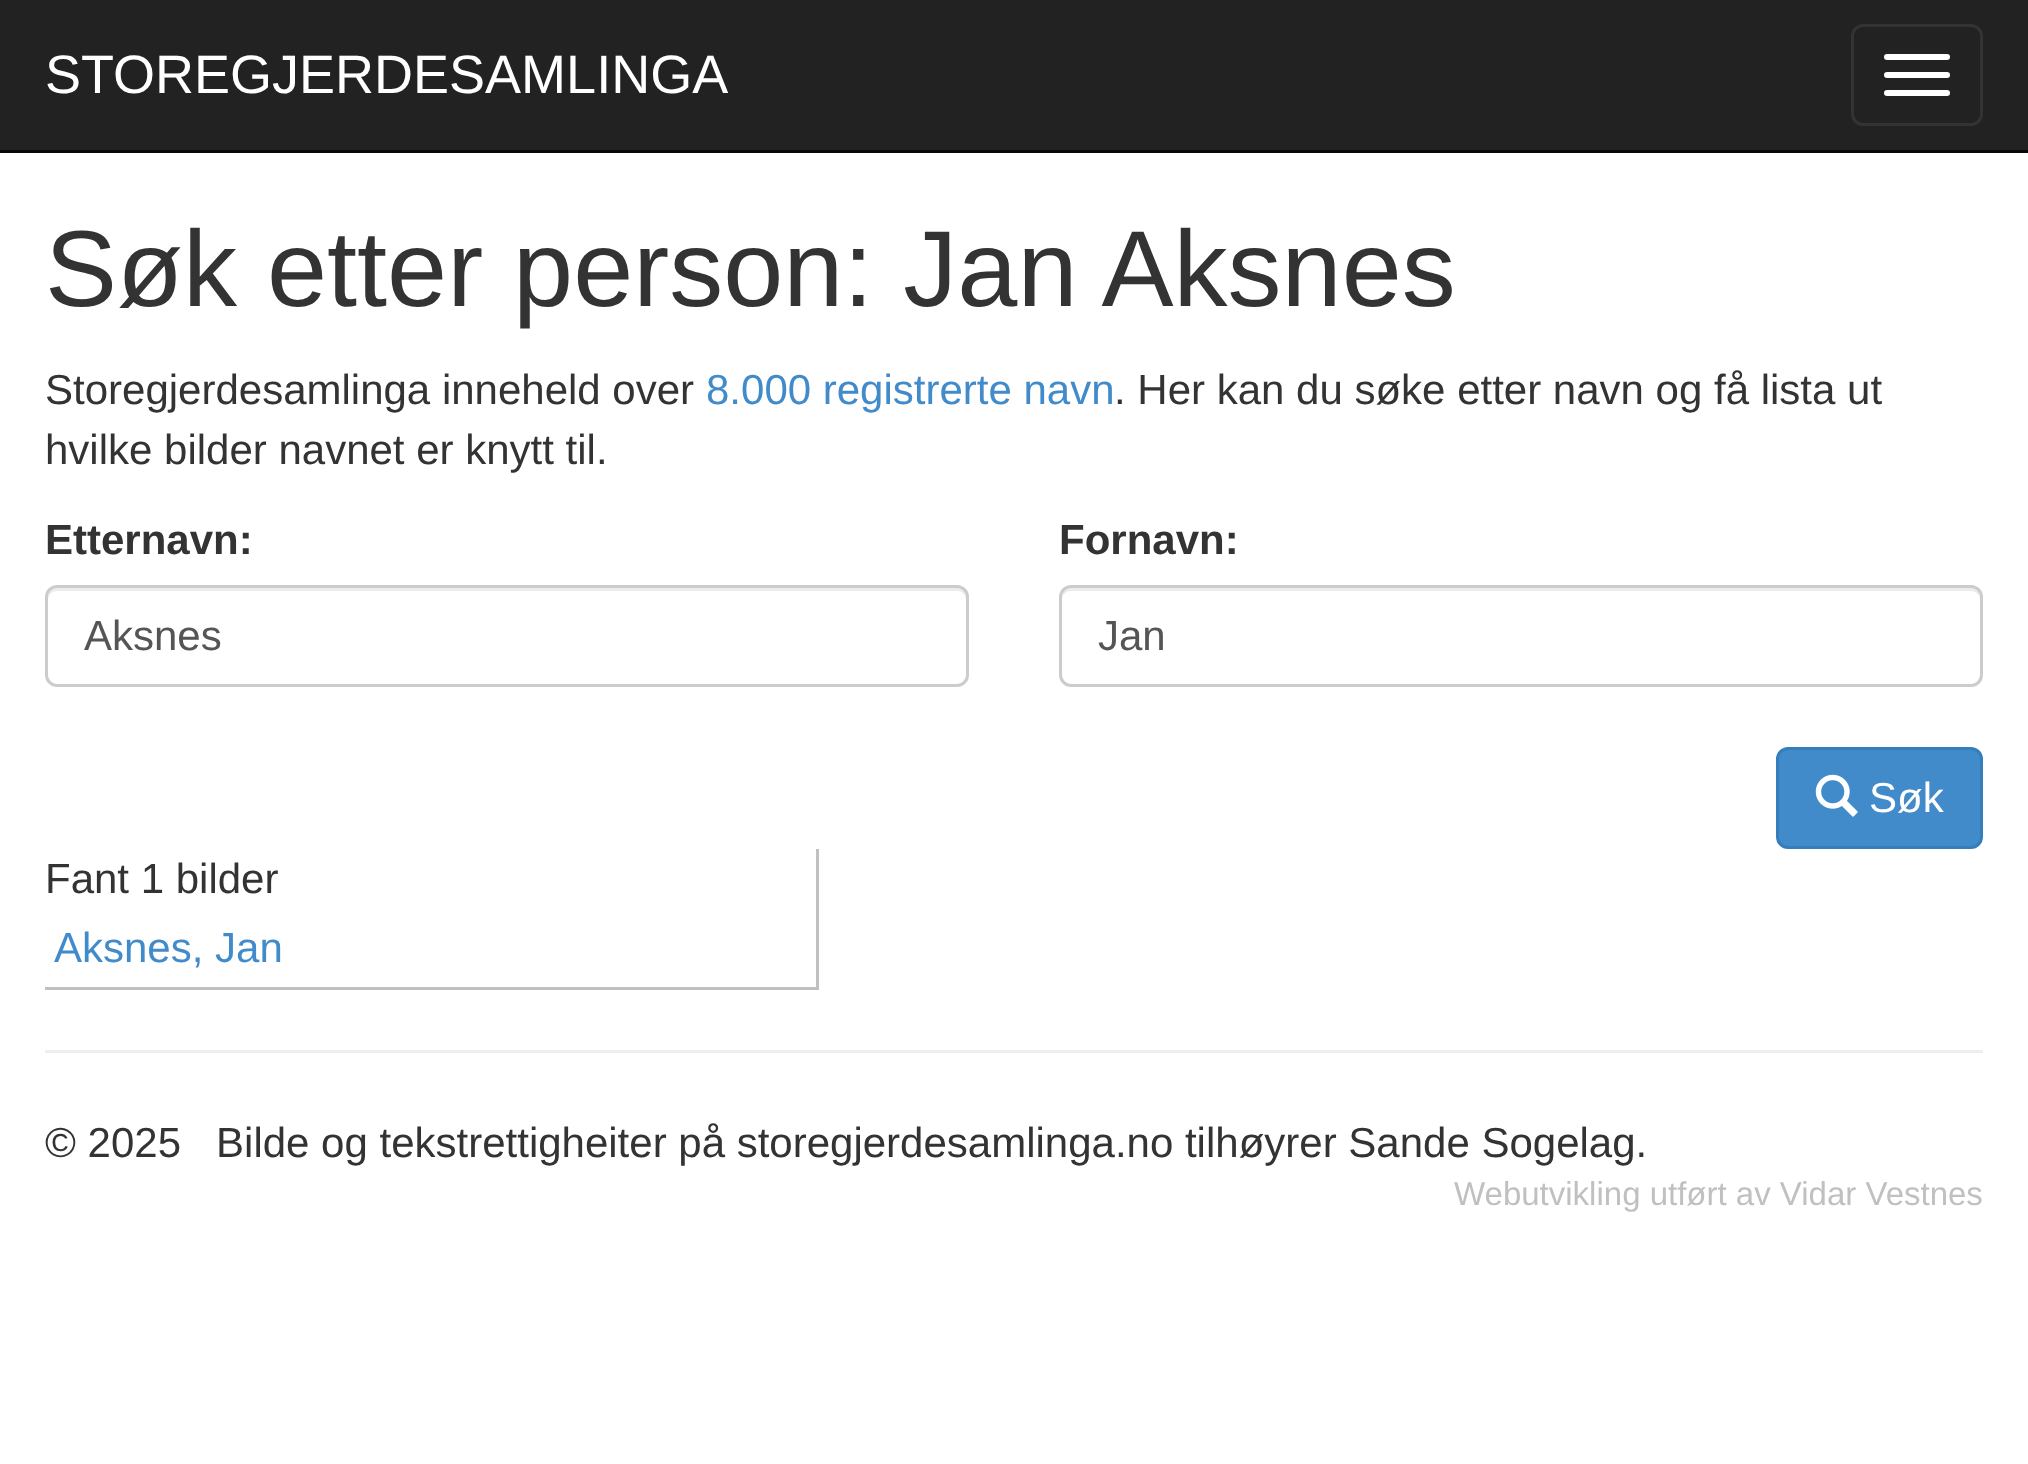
async function draw(canvas) {
  canvas.width = 2028
  canvas.height = 1464
  const ctx = canvas.getContext('2d')
  ctx.miterLimit = 4
  ctx.fontKerning = 'normal'
  async function loadImage(src) {
    const img = new Image()
    img.src = src
    await img.decode()
    return img
  }

  ctx.fillStyle = '#fff'
  ctx.fillRect(0, 0, 2028, 1464)
  ctx.fillStyle = '#222'
  ctx.fillRect(0, 0, 2028, 150)
  ctx.fillStyle = '#080808'
  ctx.fillRect(0, 150, 2028, 3)
  ctx.font = '54px Liberation Sans'
  ctx.fillStyle = '#fff'
  ctx.fillText('STOREGJERDESAMLINGA', 45, 93)
  ctx.beginPath()
  ctx.roundRect(1852.5, 25.5, 129, 99, 10.5)
  ctx.strokeStyle = '#333'
  ctx.lineWidth = 3
  ctx.stroke()
  ctx.beginPath()
  ctx.roundRect(1884, 54, 66, 6, 3)
  ctx.fill()
  ctx.beginPath()
  ctx.roundRect(1884, 72, 66, 6, 3)
  ctx.fill()
  ctx.beginPath()
  ctx.roundRect(1884, 90, 66, 6, 3)
  ctx.fill()
  ctx.font = '108px Liberation Sans'
  ctx.fillStyle = '#333'
  ctx.fillText('Søk etter person: Jan Aksnes', 45, 306)
  ctx.font = '42px Liberation Sans'
  ctx.fillText('Storegjerdesamlinga inneheld over', 45, 404)
  ctx.fillStyle = '#428bca'
  ctx.fillText('8.000 registrerte navn', 706, 404)
  ctx.fillStyle = '#333'
  ctx.fillText('. Her kan du søke etter navn og få lista ut', 1114, 404)
  ctx.fillText('hvilke bilder navnet er knytt til.', 45, 464)
  ctx.font = 'bold 42px Liberation Sans'
  ctx.fillText('Etternavn:', 45, 554)
  ctx.fillStyle = '#ececec'
  ctx.beginPath()
  ctx.moveTo(57, 591)
  ctx.lineTo(957, 591)
  ctx.bezierCurveTo(962, 591, 966, 595, 966, 600)
  ctx.lineTo(966, 597)
  ctx.bezierCurveTo(966, 592, 962, 588, 957, 588)
  ctx.lineTo(57, 588)
  ctx.bezierCurveTo(52, 588, 48, 592, 48, 597)
  ctx.lineTo(48, 600)
  ctx.bezierCurveTo(48, 595, 52, 591, 57, 591)
  ctx.closePath()
  ctx.fill()
  ctx.beginPath()
  ctx.roundRect(46.5, 586.5, 921, 99, 10.5)
  ctx.strokeStyle = '#ccc'
  ctx.stroke()
  ctx.font = '42px Liberation Sans'
  ctx.fillStyle = '#555'
  ctx.fillText('Aksnes', 84, 650)
  ctx.font = 'bold 42px Liberation Sans'
  ctx.fillStyle = '#333'
  ctx.fillText('Fornavn:', 1059, 554)
  ctx.fillStyle = '#ececec'
  ctx.beginPath()
  ctx.moveTo(1071, 591)
  ctx.lineTo(1971, 591)
  ctx.bezierCurveTo(1976, 591, 1980, 595, 1980, 600)
  ctx.lineTo(1980, 597)
  ctx.bezierCurveTo(1980, 592, 1976, 588, 1971, 588)
  ctx.lineTo(1071, 588)
  ctx.bezierCurveTo(1066, 588, 1062, 592, 1062, 597)
  ctx.lineTo(1062, 600)
  ctx.bezierCurveTo(1062, 595, 1066, 591, 1071, 591)
  ctx.closePath()
  ctx.fill()
  ctx.beginPath()
  ctx.roundRect(1060.5, 586.5, 921, 99, 10.5)
  ctx.stroke()
  ctx.font = '42px Liberation Sans'
  ctx.fillStyle = '#555'
  ctx.fillText('Jan', 1098, 650)
  ctx.fillStyle = '#428bca'
  ctx.beginPath()
  ctx.roundRect(1777.5, 748.5, 204, 99, 10.5)
  ctx.fill()
  ctx.strokeStyle = '#357ebd'
  ctx.stroke()
  ctx.drawImage(await loadImage('image0.png'), 1815, 774, 43, 43)
  ctx.fillStyle = '#fff'
  ctx.fillText('Søk', 1869, 812)
  ctx.fillStyle = '#c0c0c0'
  ctx.fillRect(816, 849, 3, 141)
  ctx.fillStyle = '#333'
  ctx.fillText('Fant 1 bilder', 45, 893)
  ctx.fillStyle = '#c0c0c0'
  ctx.fillRect(45, 987, 771, 3)
  ctx.fillStyle = '#428bca'
  ctx.fillText('Aksnes, Jan', 54, 962)
  ctx.fillStyle = '#eee'
  ctx.fillRect(45, 1050, 1938, 3)
  ctx.fillStyle = '#333'
  ctx.fillText('© 2025   Bilde og tekstrettigheiter på storegjerdesamlinga.no tilhøyrer Sande Sogelag.', 45, 1157)
  ctx.font = '33px Liberation Sans'
  ctx.fillStyle = '#c0c0c0'
  ctx.fillText('Webutvikling utført av Vidar Vestnes', 1454, 1205)
}

draw(document.querySelector('canvas'))
